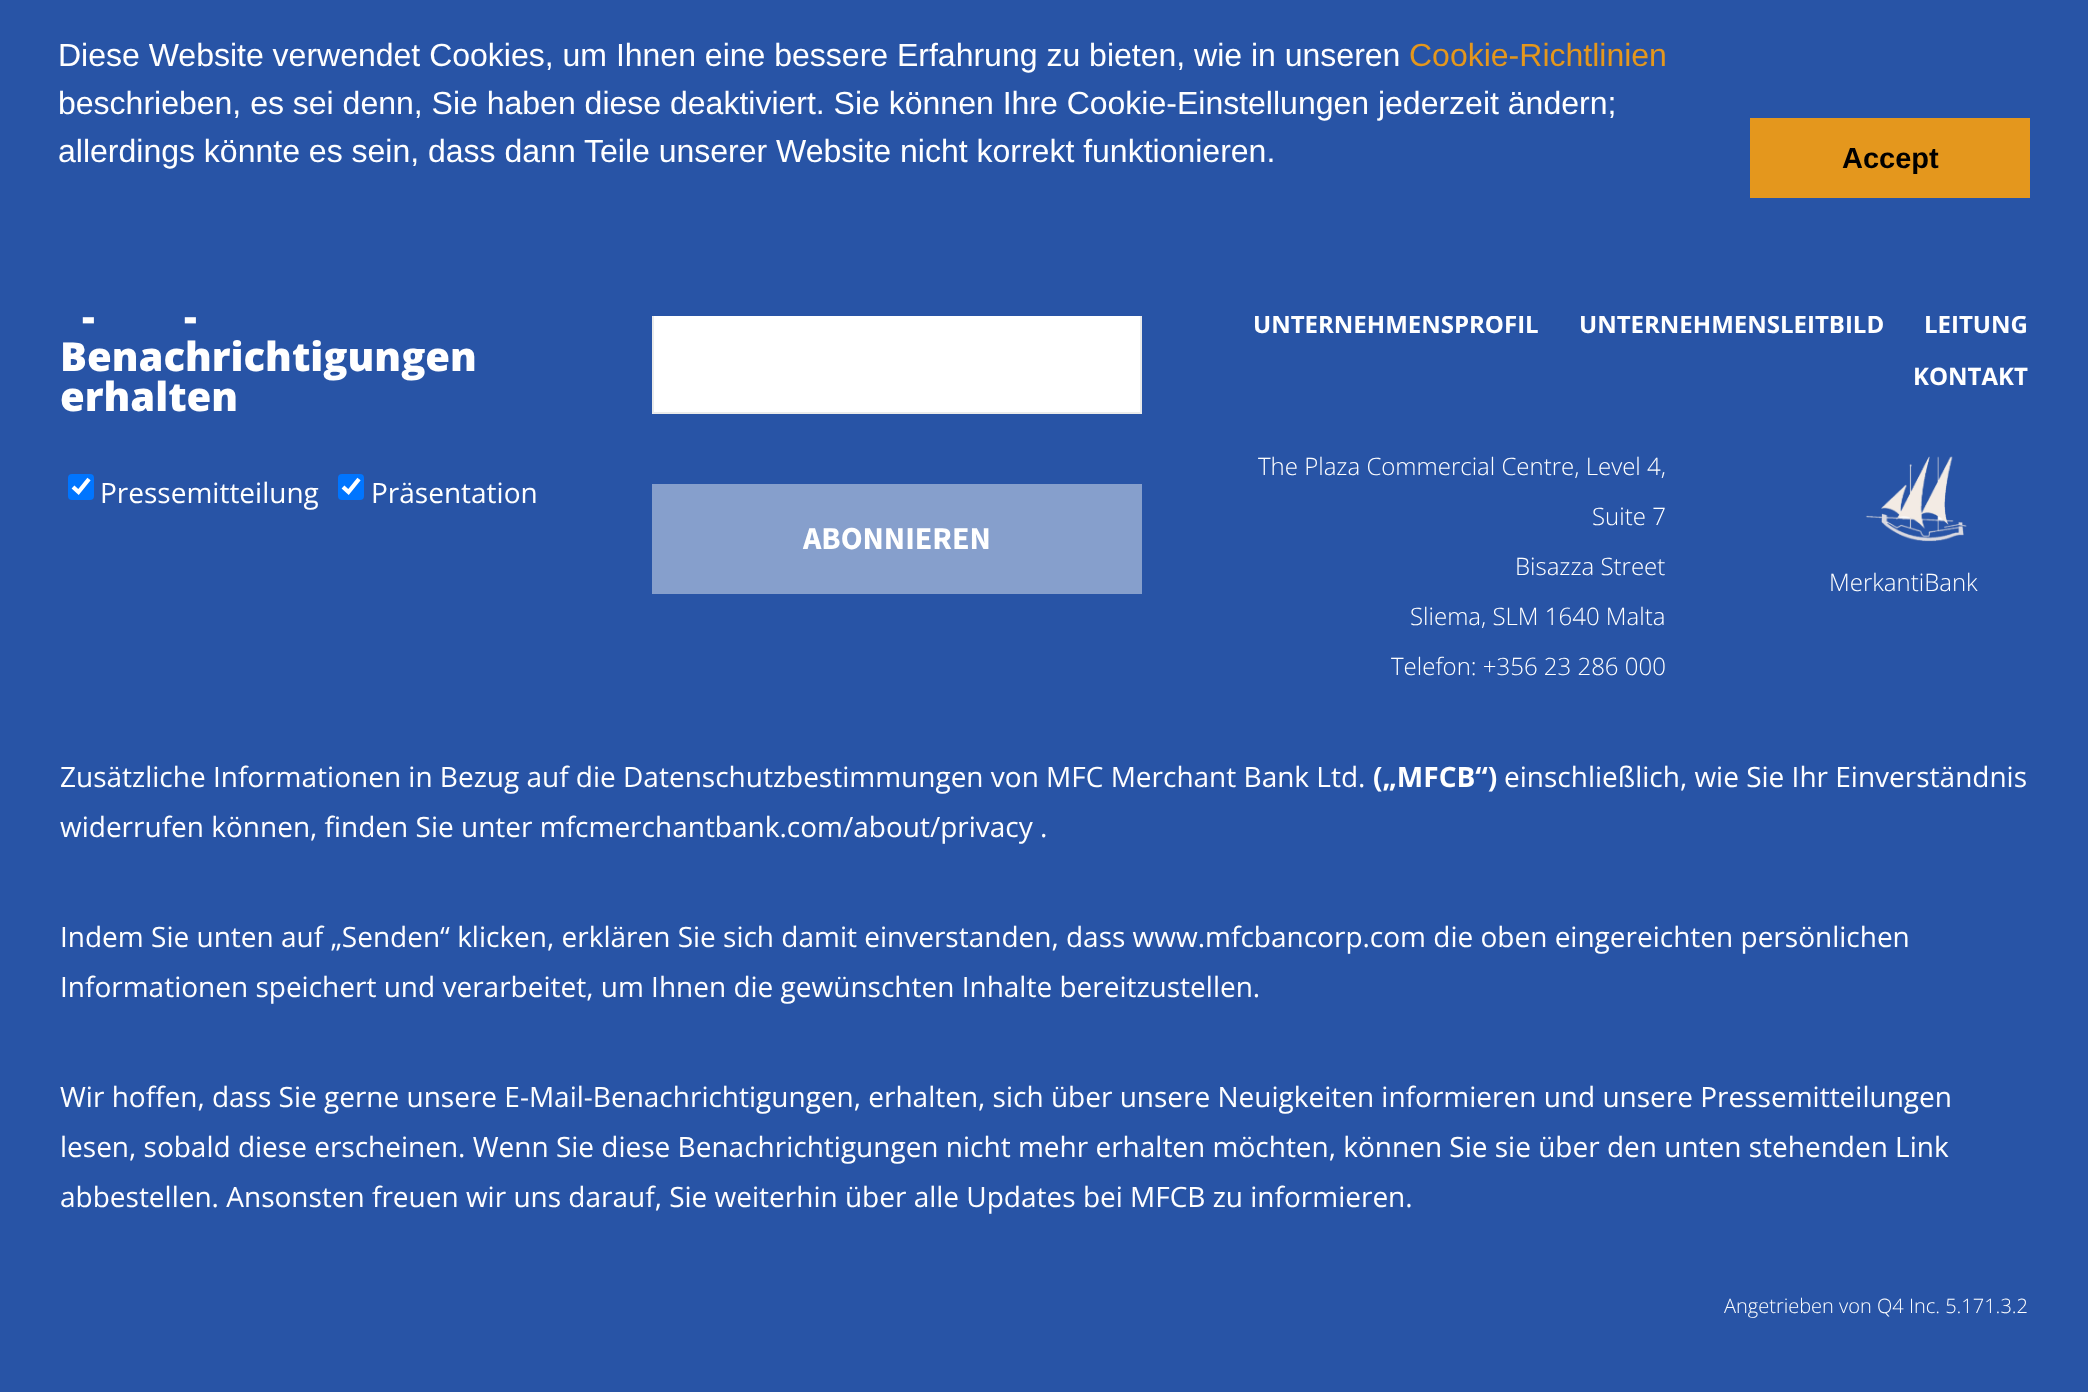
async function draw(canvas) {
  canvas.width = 2088
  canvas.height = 1392
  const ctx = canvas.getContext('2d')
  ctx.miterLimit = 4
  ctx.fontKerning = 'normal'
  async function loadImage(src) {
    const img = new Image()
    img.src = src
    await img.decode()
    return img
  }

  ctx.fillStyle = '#2854a6'
  ctx.fillRect(0, 0, 2088, 1392)
  ctx.fillStyle = '#fff'
  ctx.fillRect(654, 316, 486, 96)
  ctx.strokeStyle = '#eaebeb'
  ctx.lineWidth = 2
  ctx.strokeRect(653, 299, 488, 114)
  ctx.font = 'bold 24px Open Sans'
  ctx.fillText('UNTERNEHMENSPROFIL', 1253, 333)
  ctx.fillText('UNTERNEHMENSLEITBILD', 1579, 333)
  ctx.fillText('LEITUNG', 1924, 333)
  ctx.fillStyle = '#2854a6'
  ctx.fillRect(652, 298, 1372, 18)
  ctx.font = '32px Liberation Sans'
  ctx.fillStyle = '#fff'
  ctx.fillText('Diese Website verwendet Cookies, um Ihnen eine bessere Erfahrung zu bieten, wie in unseren', 58, 66)
  ctx.fillStyle = '#e4971d'
  ctx.fillText('Cookie-Richtlinien', 1409, 66)
  ctx.fillStyle = '#fff'
  ctx.fillText('beschrieben, es sei denn, Sie haben diese deaktiviert. Sie können Ihre Cookie-Einstellungen jederzeit ändern;', 58, 114)
  ctx.fillText('allerdings könnte es sein, dass dann Teile unserer Website nicht korrekt funktionieren.', 58, 162)
  ctx.fillStyle = '#e4971d'
  ctx.fillRect(1750, 118, 280, 80)
  ctx.font = 'bold 29px Liberation Sans'
  ctx.fillStyle = '#000'
  ctx.fillText('Accept', 1842, 168)
  ctx.font = '800 40px Open Sans'
  ctx.fillStyle = '#fff'
  ctx.fillText('-', 82, 331)
  ctx.fillText('-', 184, 331)
  ctx.fillText('Benachrichtigungen', 60, 371)
  ctx.fillText('erhalten', 60, 411)
  ctx.fillStyle = '#0075ff'
  ctx.beginPath()
  ctx.roundRect(68, 474, 26, 26, 4)
  ctx.fill()
  ctx.beginPath()
  ctx.moveTo(73, 487)
  ctx.lineTo(78.5, 492)
  ctx.lineTo(89, 479)
  ctx.strokeStyle = '#fff'
  ctx.lineWidth = 4.2
  ctx.stroke()
  ctx.font = '28px Open Sans'
  ctx.fillStyle = '#fff'
  ctx.fillText('Pressemitteilung', 100, 503)
  ctx.fillStyle = '#0075ff'
  ctx.beginPath()
  ctx.roundRect(338, 474, 26, 26, 4)
  ctx.fill()
  ctx.beginPath()
  ctx.moveTo(343, 487)
  ctx.lineTo(348.5, 492)
  ctx.lineTo(359, 479)
  ctx.stroke()
  ctx.fillStyle = '#fff'
  ctx.fillText('Präsentation', 371, 503)
  ctx.fillStyle = '#869fcc'
  ctx.fillRect(652, 484, 490, 110)
  ctx.font = 'bold 32px Source Sans Pro'
  ctx.fillStyle = '#fff'
  ctx.fillText('ABONNIEREN', 803, 549)
  ctx.font = 'bold 24px Open Sans'
  ctx.fillText('KONTAKT', 1913, 385)
  ctx.font = '300 24px Open Sans'
  ctx.fillText('The Plaza Commercial Centre, Level 4,', 1258, 475)
  ctx.fillText('Suite 7', 1592, 525)
  ctx.fillText('Bisazza Street', 1515, 575)
  ctx.fillText('Sliema, SLM 1640 Malta', 1410, 625)
  ctx.fillText('Telefon: +356 23 286 000', 1391, 675)
  ctx.drawImage(await loadImage('image0.png'), 1865, 456, 102, 86)
  ctx.fillText('MerkantiBank', 1829, 591)
  ctx.font = '28px Open Sans'
  ctx.fillText('Zusätzliche Informationen in Bezug auf die Datenschutzbestimmungen von MFC Merchant Bank Ltd.', 60, 787)
  ctx.font = 'bold 28px Open Sans'
  ctx.fillText('(„MFCB“)', 1373, 787)
  ctx.font = '28px Open Sans'
  ctx.fillText('einschließlich, wie Sie Ihr Einverständnis', 1504, 787)
  ctx.fillText('widerrufen können, finden Sie unter mfcmerchantbank.com/about/privacy .', 60, 837)
  ctx.fillText('Indem Sie unten auf „Senden“ klicken, erklären Sie sich damit einverstanden, dass www.mfcbancorp.com die oben eingereichten persönlichen', 60, 947)
  ctx.fillText('Informationen speichert und verarbeitet, um Ihnen die gewünschten Inhalte bereitzustellen.', 60, 997)
  ctx.fillText('Wir hoffen, dass Sie gerne unsere E-Mail-Benachrichtigungen, erhalten, sich über unsere Neuigkeiten informieren und unsere Pressemitteilungen', 60, 1107)
  ctx.fillText('lesen, sobald diese erscheinen. Wenn Sie diese Benachrichtigungen nicht mehr erhalten möchten, können Sie sie über den unten stehenden Link', 60, 1157)
  ctx.fillText('abbestellen. Ansonsten freuen wir uns darauf, Sie weiterhin über alle Updates bei MFCB zu informieren.', 60, 1207)
  ctx.font = '300 20px Open Sans'
  ctx.fillText('Angetrieben von Q4 Inc. 5.171.3.2', 1724, 1313)
}

draw(document.querySelector('canvas'))
